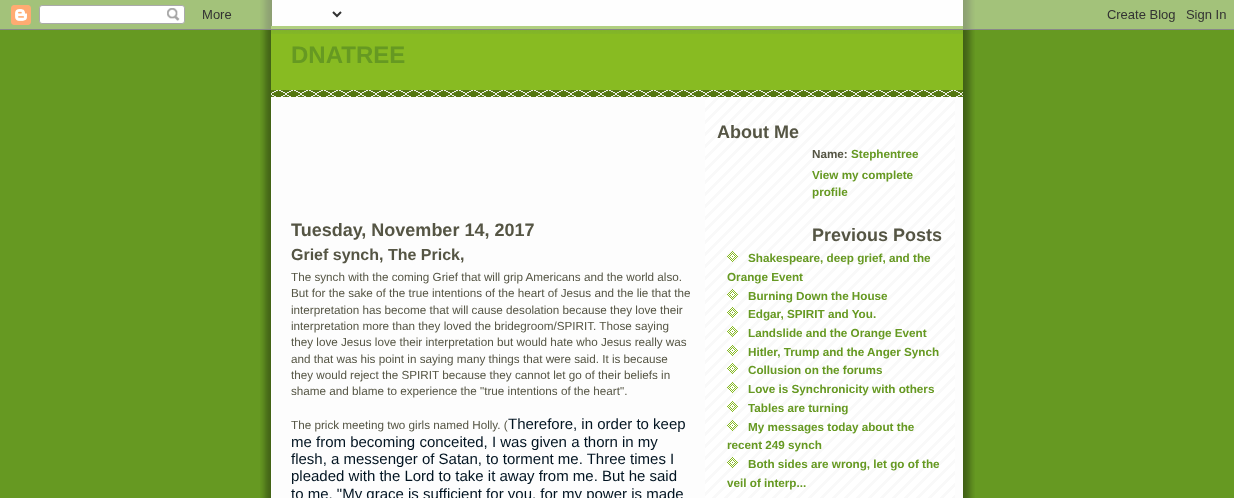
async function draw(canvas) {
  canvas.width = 1234
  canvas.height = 498
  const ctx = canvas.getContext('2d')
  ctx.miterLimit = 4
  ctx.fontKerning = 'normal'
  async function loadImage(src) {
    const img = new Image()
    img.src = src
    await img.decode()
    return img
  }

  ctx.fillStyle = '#692'
  ctx.fillRect(0, 0, 1234, 498)
  ctx.drawImage(await loadImage('image0.png'), 260, 0, 715, 498)
  ctx.drawImage(await loadImage('image4.png'), 271, 26, 692, 8)
  ctx.drawImage(await loadImage('image1.png'), 0, 0, 1234, 30)
  ctx.fillStyle = '#fff'
  ctx.fillRect(271, 97, 1, 401)
  ctx.drawImage(await loadImage('image2.png'), 705, 97, 250, 401)
  ctx.fillStyle = '#8b2'
  ctx.fillRect(271, 34, 692, 56)
  ctx.drawImage(await loadImage('image3.png'), 271, 90, 692, 7)
  ctx.font = 'bold 24px Liberation Sans'
  ctx.fillStyle = '#692'
  ctx.fillText('DNATREE', 291, 63)
  ctx.font = 'bold 18px Liberation Sans'
  ctx.fillStyle = '#554'
  ctx.fillText('Tuesday, November 14, 2017', 291, 236)
  ctx.font = 'bold 16px Liberation Sans'
  ctx.fillText('Grief synch, The Prick,', 291, 260)
  ctx.font = '11.7px Liberation Sans'
  ctx.fillText('The synch with the coming Grief that will grip Americans and the world also.', 291, 281)
  ctx.fillText('But for the sake of the true intentions of the heart of Jesus and the lie that the', 291, 297)
  ctx.fillText('interpretation has become that will cause desolation because they love their', 291, 314)
  ctx.fillText('interpretation more than they loved the bridegroom/SPIRIT. Those saying', 291, 330)
  ctx.fillText('they love Jesus love their interpretation but would hate who Jesus really was', 291, 346)
  ctx.fillText('and that was his point in saying many things that were said. It is because', 291, 363)
  ctx.fillText('they would reject the SPIRIT because they cannot let go of their beliefs in', 291, 379)
  ctx.fillText('shame and blame to experience the "true intentions of the heart".', 291, 395)
  ctx.fillText('The prick meeting two girls named Holly. (', 291, 429)
  ctx.font = '15px Liberation Sans'
  ctx.fillStyle = '#001320'
  ctx.fillText('Therefore, in order to keep', 508, 429)
  ctx.fillText('me from becoming conceited, I was given a thorn in my', 291, 447)
  ctx.fillText('flesh, a messenger of Satan, to torment me. Three times I', 291, 464)
  ctx.fillText('pleaded with the Lord to take it away from me. But he said', 291, 481)
  ctx.fillStyle = '#fdfeff'
  ctx.fillRect(650, 450, 3, 1)
  ctx.fillRect(399, 467, 2, 1)
  ctx.fillStyle = '#001320'
  ctx.fillText('to me, "My grace is sufficient for you, for my power is made', 291, 499)
  ctx.font = 'bold 18px Liberation Sans'
  ctx.fillStyle = '#554'
  ctx.fillText('About Me', 717, 138)
  ctx.font = 'bold 11.7px Liberation Sans'
  ctx.fillText('Name:', 812, 158)
  ctx.fillStyle = '#692'
  ctx.fillText('Stephentree', 851, 158)
  ctx.fillText('View my complete', 812, 179)
  ctx.fillText('profile', 812, 196)
  ctx.font = 'bold 18px Liberation Sans'
  ctx.fillStyle = '#554'
  ctx.fillText('Previous Posts', 812, 241)
  ctx.drawImage(await loadImage('image5.png'), 727, 251, 11, 11)
  ctx.font = 'bold 11.7px Liberation Sans'
  ctx.fillStyle = '#692'
  ctx.fillText('Shakespeare, deep grief, and the', 748, 262)
  ctx.fillText('Orange Event', 727, 281)
  ctx.drawImage(await loadImage('image6.png'), 727, 289, 11, 11)
  ctx.fillText('Burning Down the House', 748, 300)
  ctx.drawImage(await loadImage('image7.png'), 727, 307, 11, 11)
  ctx.fillText('Edgar, SPIRIT and You.', 748, 318)
  ctx.drawImage(await loadImage('image8.png'), 727, 326, 11, 11)
  ctx.fillText('Landslide and the Orange Event', 748, 337)
  ctx.drawImage(await loadImage('image9.png'), 727, 345, 11, 11)
  ctx.fillText('Hitler, Trump and the Anger Synch', 748, 356)
  ctx.drawImage(await loadImage('image10.png'), 727, 363, 11, 11)
  ctx.fillText('Collusion on the forums', 748, 374)
  ctx.drawImage(await loadImage('image11.png'), 727, 382, 11, 11)
  ctx.fillText('Love is Synchronicity with others', 748, 393)
  ctx.drawImage(await loadImage('image12.png'), 727, 401, 11, 11)
  ctx.fillText('Tables are turning', 748, 412)
  ctx.drawImage(await loadImage('image13.png'), 727, 420, 11, 11)
  ctx.fillText('My messages today about the', 748, 431)
  ctx.fillText('recent 249 synch', 727, 449)
  ctx.drawImage(await loadImage('image6.png'), 727, 457, 11, 11)
  ctx.fillText('Both sides are wrong, let go of the', 748, 468)
  ctx.fillText('veil of interp...', 727, 487)
}

draw(document.querySelector('canvas'))
